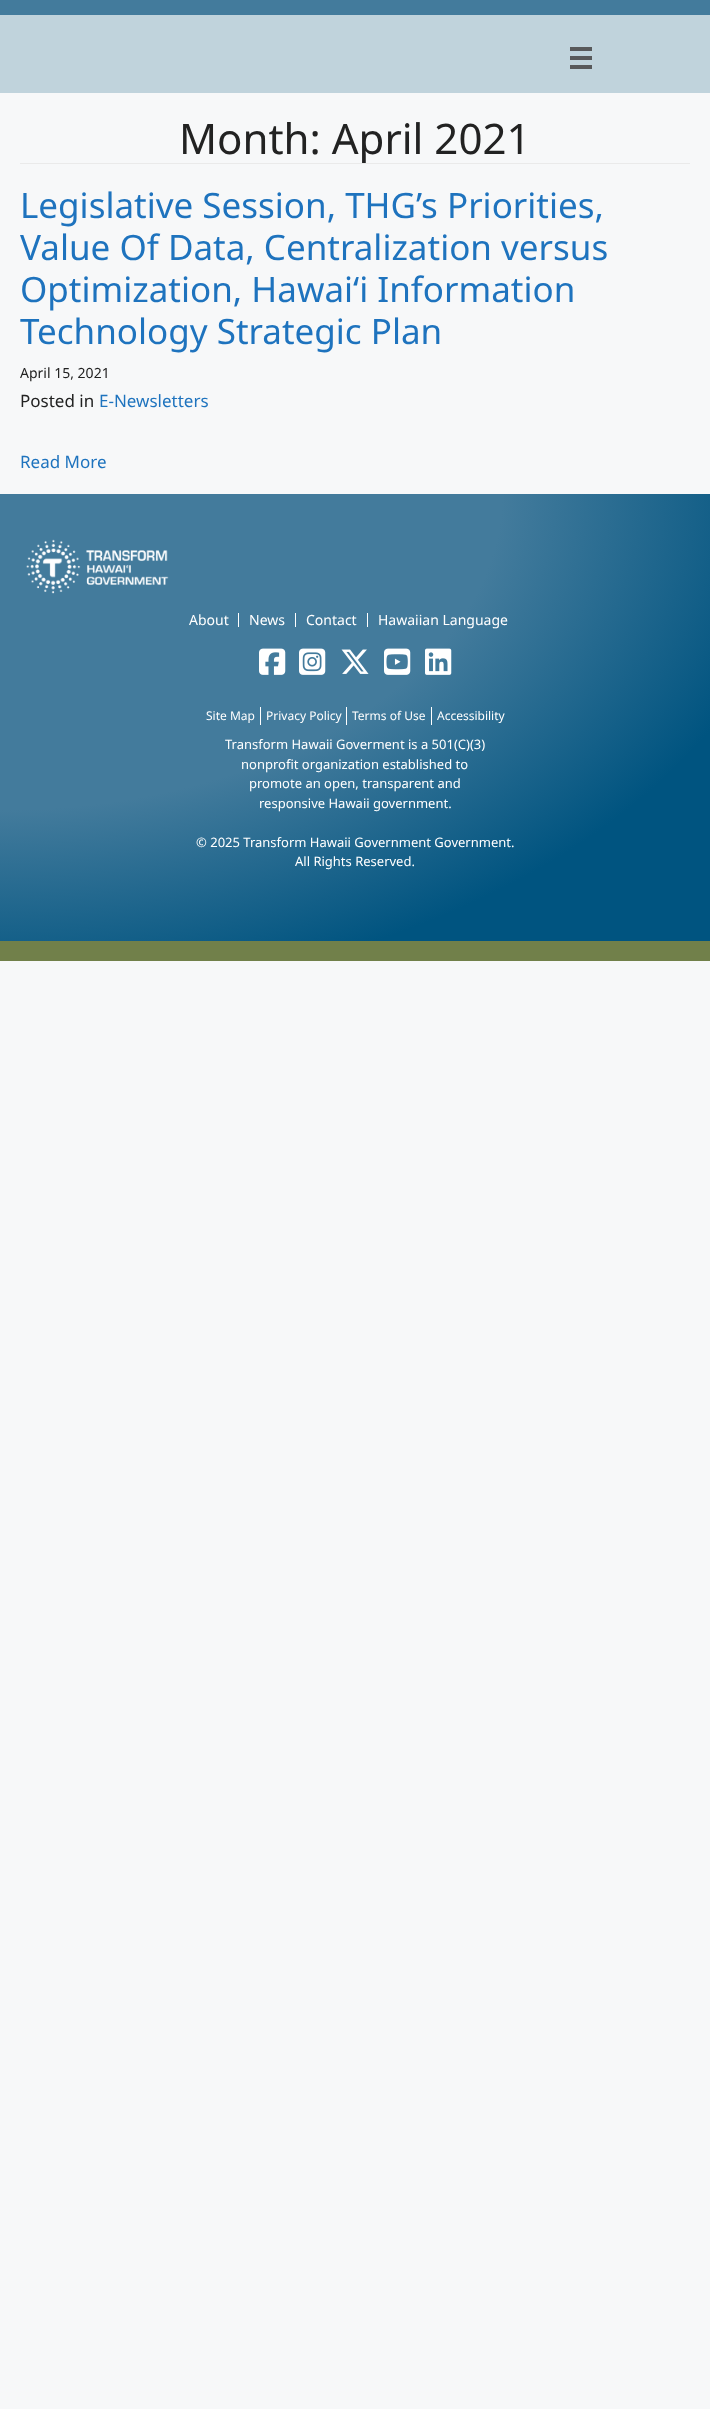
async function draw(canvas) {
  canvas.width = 710
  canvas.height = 2409
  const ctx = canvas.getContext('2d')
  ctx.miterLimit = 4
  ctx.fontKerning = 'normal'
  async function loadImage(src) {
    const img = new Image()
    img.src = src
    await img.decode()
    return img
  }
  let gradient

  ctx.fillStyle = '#f7f8f9'
  ctx.fillRect(0, 0, 710, 2409)
  ctx.fillStyle = '#c0d3dc'
  ctx.fillRect(0, 15, 710, 78)
  ctx.fillStyle = '#437b9c'
  ctx.fillRect(0, 0, 710, 15)
  ctx.fillStyle = '#58595b'
  ctx.fillRect(570, 47, 22, 4)
  ctx.fillRect(570, 56, 22, 4)
  ctx.fillRect(570, 65, 22, 4)
  ctx.font = '42px Noto Sans'
  ctx.fillStyle = '#222'
  ctx.fillText('Month: April 2021', 179, 154)
  ctx.fillStyle = '#eaeaea'
  ctx.fillRect(20, 163, 670, 1)
  ctx.font = '35px Noto Sans'
  ctx.fillStyle = '#1e73be'
  ctx.fillText('Legislative Session, THG’s Priorities,', 20, 218)
  ctx.fillText('Value Of Data, Centralization versus', 20, 260)
  ctx.fillText('Optimization, Hawai‘i Information', 20, 302)
  ctx.fillText('Technology Strategic Plan', 20, 344)
  ctx.font = '14px Noto Sans'
  ctx.fillStyle = '#222'
  ctx.fillText('April 15, 2021', 20, 378)
  ctx.font = '17px Noto Sans'
  ctx.fillText('Posted in', 20, 407)
  ctx.fillStyle = '#1e73be'
  ctx.fillText('E-Newsletters', 99, 407)
  ctx.fillText('Read More', 20, 468)
  gradient = ctx.createRadialGradient(0, 784.77, 0, 0, 784.77, 1004)
  gradient.addColorStop(0.5, '#437b9c')
  gradient.addColorStop(0.8, '#005480')
  ctx.fillStyle = gradient
  ctx.beginPath()
  ctx.rect(0, 494, 710, 447)
  ctx.save()
  ctx.clip()
  ctx.scale(1, 632 / 1004)
  ctx.fillRect(0, 0, 710, 3827)
  ctx.restore()
  ctx.fillStyle = '#71804a'
  ctx.fillRect(0, 941, 710, 20)
  ctx.drawImage(await loadImage('image0.png'), 26, 539, 143, 55)
  ctx.font = '14px Noto Sans'
  ctx.fillStyle = '#fff'
  ctx.fillText('About', 189, 625)
  ctx.fillRect(238, 613, 1, 14)
  ctx.fillText('News', 249, 625)
  ctx.fillRect(295, 613, 1, 14)
  ctx.fillText('Contact', 306, 625)
  ctx.fillRect(367, 613, 1, 14)
  ctx.fillText('Hawaiian Language', 378, 625)
  ctx.drawImage(await loadImage('image1.png'), 259, 648, 27, 27)
  ctx.drawImage(await loadImage('image2.png'), 299, 648, 27, 27)
  ctx.drawImage(await loadImage('image3.png'), 341, 649, 28, 25)
  ctx.drawImage(await loadImage('image4.png'), 384, 648, 27, 27)
  ctx.drawImage(await loadImage('image5.png'), 425, 648, 27, 27)
  ctx.font = '12px Noto Sans'
  ctx.fillText('Site Map', 206, 720)
  ctx.fillRect(260, 707, 1, 18)
  ctx.fillText('Privacy Policy', 266, 720)
  ctx.fillRect(346, 707, 1, 18)
  ctx.fillText('Terms of Use', 352, 720)
  ctx.fillRect(431, 707, 1, 18)
  ctx.fillText('Accessibility', 437, 720)
  ctx.font = '13px Noto Sans'
  ctx.fillText('Transform Hawaii Goverment is a 501(C)(3)', 225, 749)
  ctx.fillText('nonprofit organization established to', 241, 769)
  ctx.fillText('promote an open, transparent and', 249, 788)
  ctx.fillText('responsive Hawaii government.', 259, 808)
  ctx.fillText('© 2025 Transform Hawaii Government Government.', 196, 847)
  ctx.fillText('All Rights Reserved.', 295, 866)
}

draw(document.querySelector('canvas'))
